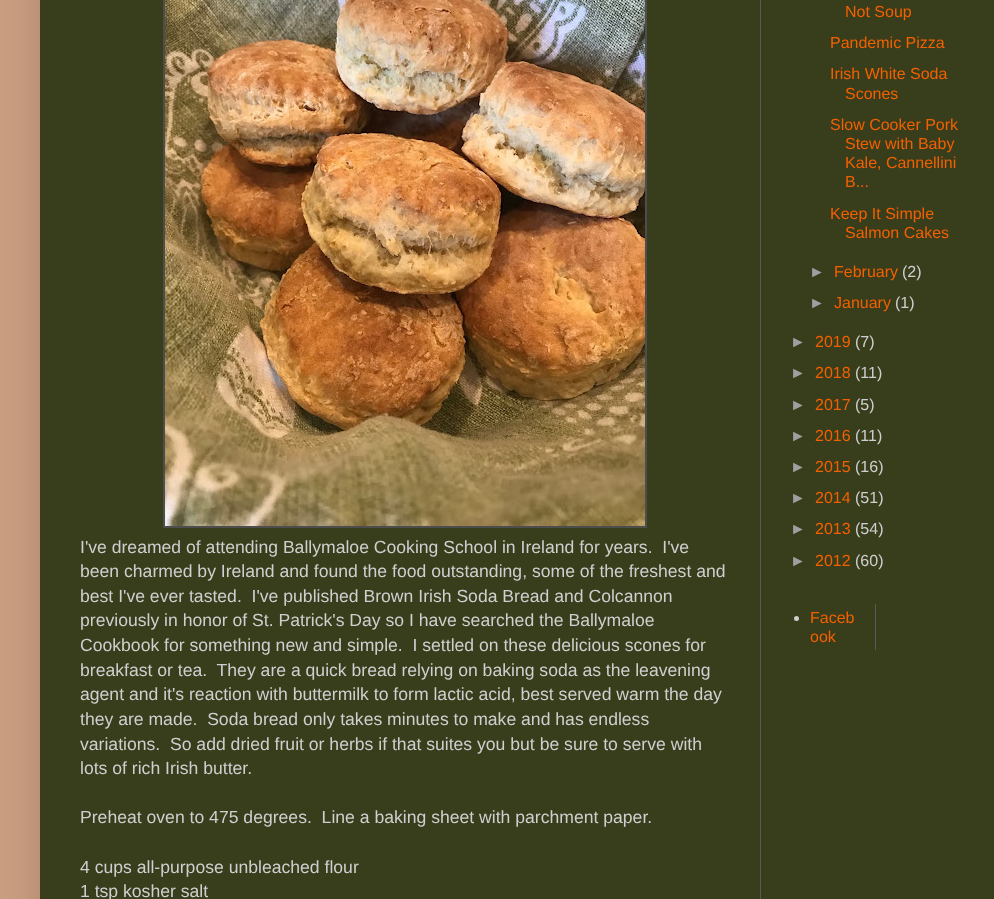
async function draw(canvas) {
  canvas.width = 994
  canvas.height = 899
  const ctx = canvas.getContext('2d')
  ctx.miterLimit = 4
  ctx.fontKerning = 'normal'
  async function loadImage(src) {
    const img = new Image()
    img.src = src
    await img.decode()
    return img
  }

  ctx.fillStyle = '#ca9e81'
  ctx.fillRect(0, 0, 994, 899)
  ctx.fillStyle = '#00000026'
  ctx.filter = 'blur(20px)'
  ctx.beginPath()
  ctx.rect(40, -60, 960, 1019)
  ctx.fill()
  ctx.filter = 'none'
  ctx.fillStyle = '#383d1b'
  ctx.fillRect(40, 0, 954, 899)
  ctx.fillStyle = '#595959'
  ctx.fillRect(760, 0, 1, 899)
  ctx.font = '16px Liberation Sans'
  ctx.fillStyle = '#f36000'
  ctx.fillText('Not Soup', 845, 17)
  ctx.fillText('Pandemic Pizza', 830, 48)
  ctx.fillText('Irish White Soda', 830, 79)
  ctx.fillText('Scones', 845, 99)
  ctx.fillText('Slow Cooker Pork', 830, 130)
  ctx.fillText('Stew with Baby', 845, 149)
  ctx.fillText('Kale, Cannellini', 845, 168)
  ctx.fillText('B...', 845, 187)
  ctx.fillText('Keep It Simple', 830, 219)
  ctx.fillText('Salmon Cakes', 845, 238)
  ctx.fillStyle = '#9f9f9f'
  ctx.fillText('►', 809, 277)
  ctx.fillStyle = '#f36000'
  ctx.fillText('February', 834, 277)
  ctx.fillStyle = '#cfcfcf'
  ctx.fillText('(2)', 902, 277)
  ctx.fillStyle = '#9f9f9f'
  ctx.fillText('►', 809, 308)
  ctx.fillStyle = '#f36000'
  ctx.fillText('January', 834, 308)
  ctx.fillStyle = '#cfcfcf'
  ctx.fillText('(1)', 895, 308)
  ctx.fillStyle = '#9f9f9f'
  ctx.fillText('►', 790, 347)
  ctx.fillStyle = '#f36000'
  ctx.fillText('2019', 815, 347)
  ctx.fillStyle = '#cfcfcf'
  ctx.fillText('(7)', 855, 347)
  ctx.fillStyle = '#9f9f9f'
  ctx.fillText('►', 790, 378)
  ctx.fillStyle = '#f36000'
  ctx.fillText('2018', 815, 378)
  ctx.fillStyle = '#cfcfcf'
  ctx.fillText('(11)', 855, 378)
  ctx.fillStyle = '#9f9f9f'
  ctx.fillText('►', 790, 410)
  ctx.fillStyle = '#f36000'
  ctx.fillText('2017', 815, 410)
  ctx.fillStyle = '#cfcfcf'
  ctx.fillText('(5)', 855, 410)
  ctx.fillStyle = '#9f9f9f'
  ctx.fillText('►', 790, 441)
  ctx.fillStyle = '#f36000'
  ctx.fillText('2016', 815, 441)
  ctx.fillStyle = '#cfcfcf'
  ctx.fillText('(11)', 855, 441)
  ctx.fillStyle = '#9f9f9f'
  ctx.fillText('►', 790, 472)
  ctx.fillStyle = '#f36000'
  ctx.fillText('2015', 815, 472)
  ctx.fillStyle = '#cfcfcf'
  ctx.fillText('(16)', 855, 472)
  ctx.fillStyle = '#9f9f9f'
  ctx.fillText('►', 790, 503)
  ctx.fillStyle = '#f36000'
  ctx.fillText('2014', 815, 503)
  ctx.fillStyle = '#cfcfcf'
  ctx.fillText('(51)', 855, 503)
  ctx.fillStyle = '#9f9f9f'
  ctx.fillText('►', 790, 534)
  ctx.fillStyle = '#f36000'
  ctx.fillText('2013', 815, 534)
  ctx.fillStyle = '#cfcfcf'
  ctx.fillText('(54)', 855, 534)
  ctx.fillStyle = '#9f9f9f'
  ctx.fillText('►', 790, 566)
  ctx.fillStyle = '#f36000'
  ctx.fillText('2012', 815, 566)
  ctx.fillStyle = '#cfcfcf'
  ctx.fillText('(60)', 855, 566)
  ctx.beginPath()
  ctx.arc(796.5, 618.5, 2.5, 0, 2 * Math.PI)
  ctx.fill()
  ctx.fillStyle = '#f36000'
  ctx.fillText('Faceb', 810, 623)
  ctx.fillText('ook', 810, 642)
  ctx.fillStyle = '#595959'
  ctx.fillRect(875, 604, 1, 46)
  ctx.fillStyle = '#4d4d4d'
  ctx.fillRect(163, 0, 484, 528)
  ctx.drawImage(await loadImage('image0.png'), 165, 0, 480, 526)
  ctx.font = '17.6px Liberation Sans'
  ctx.fillStyle = '#cfcfcf'
  ctx.fillText('I\'ve dreamed of attending Ballymaloe Cooking School in Ireland for years.  I\'ve', 80, 553)
  ctx.fillText('been charmed by Ireland and found the food outstanding, some of the freshest and', 80, 577)
  ctx.fillText('best I\'ve ever tasted.  I\'ve published Brown Irish Soda Bread and Colcannon', 80, 602)
  ctx.fillText('previously in honor of St. Patrick\'s Day so I have searched the Ballymaloe', 80, 626)
  ctx.fillText('Cookbook for something new and simple.  I settled on these delicious scones for', 80, 651)
  ctx.fillText('breakfast or tea.  They are a quick bread relying on baking soda as the leavening', 80, 676)
  ctx.fillText('agent and it\'s reaction with buttermilk to form lactic acid, best served warm the day', 80, 700)
  ctx.fillText('they are made.  Soda bread only takes minutes to make and has endless', 80, 725)
  ctx.fillText('variations.  So add dried fruit or herbs if that suites you but be sure to serve with', 80, 750)
  ctx.fillText('lots of rich Irish butter.', 80, 774)
  ctx.fillText('Preheat oven to 475 degrees.  Line a baking sheet with parchment paper.', 80, 823)
  ctx.fillText('4 cups all-purpose unbleached flour', 80, 873)
  ctx.fillText('1 tsp kosher salt', 80, 897)
}

draw(document.querySelector('canvas'))
